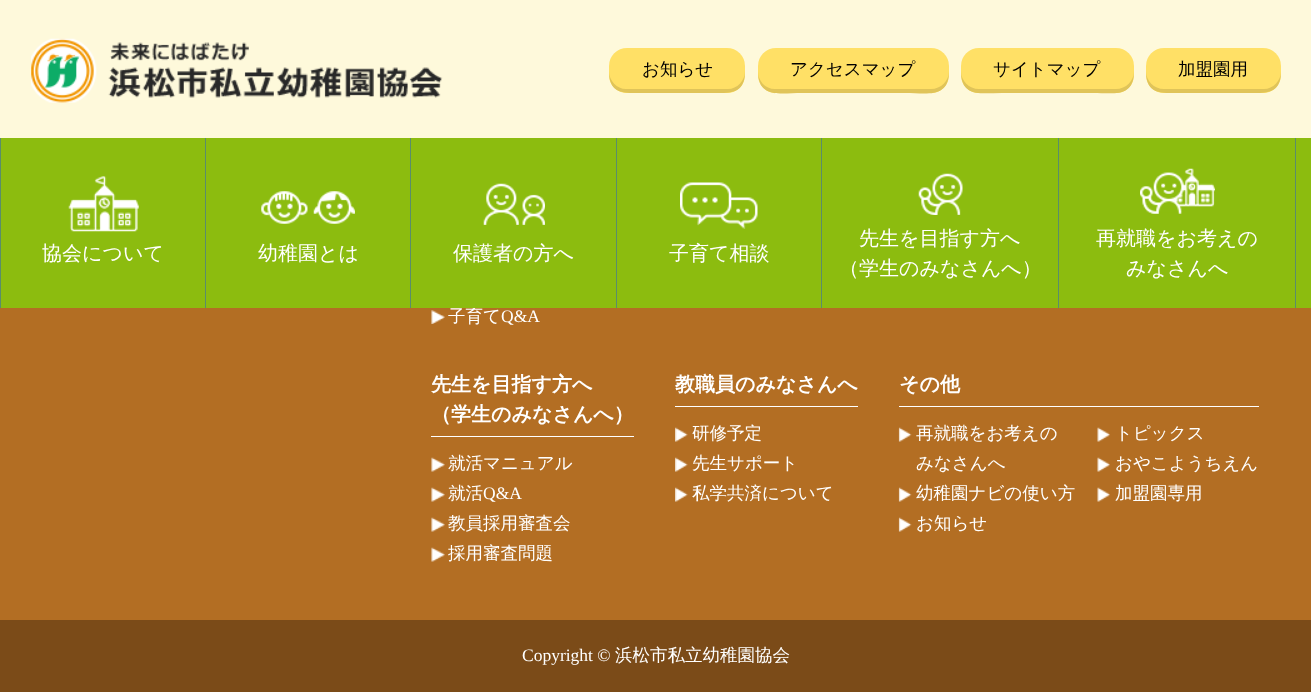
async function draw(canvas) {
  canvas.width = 1311
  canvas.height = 692
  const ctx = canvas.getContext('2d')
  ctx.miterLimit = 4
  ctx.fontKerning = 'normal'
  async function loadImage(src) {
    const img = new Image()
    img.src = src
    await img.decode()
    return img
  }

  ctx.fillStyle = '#b36e23'
  ctx.fillRect(0, 0, 1311, 692)
  ctx.fillStyle = '#fef9db'
  ctx.fillRect(0, 0, 1311, 138)
  ctx.drawImage(await loadImage('image0.png'), 31, 38, 412, 65)
  ctx.fillStyle = '#ffe066'
  ctx.beginPath()
  ctx.roundRect(609, 48, 136, 45, 18)
  ctx.fill()
  ctx.fillStyle = '#e0c459'
  ctx.beginPath()
  ctx.moveTo(609, 71)
  ctx.bezierCurveTo(609, 95, 624, 93, 644, 93)
  ctx.lineTo(710, 93)
  ctx.bezierCurveTo(730, 93, 745, 95, 745, 71)
  ctx.bezierCurveTo(745, 81, 737, 89, 728, 89)
  ctx.lineTo(626, 89)
  ctx.bezierCurveTo(617, 89, 609, 81, 609, 71)
  ctx.closePath()
  ctx.fill()
  ctx.font = '500 17.5px WenQuanYi Zen Hei'
  ctx.fillStyle = '#000'
  ctx.fillText('お知らせ', 642, 75)
  ctx.fillStyle = '#ffe066'
  ctx.beginPath()
  ctx.roundRect(758, 48, 191, 45, 18)
  ctx.fill()
  ctx.fillStyle = '#e0c459'
  ctx.beginPath()
  ctx.moveTo(758, 71)
  ctx.bezierCurveTo(758, 99, 780, 93, 802, 93)
  ctx.lineTo(905, 93)
  ctx.bezierCurveTo(927, 93, 949, 99, 949, 71)
  ctx.bezierCurveTo(949, 81, 941, 89, 931, 89)
  ctx.lineTo(775, 89)
  ctx.bezierCurveTo(765, 89, 758, 81, 758, 71)
  ctx.closePath()
  ctx.fill()
  ctx.fillStyle = '#000'
  ctx.fillText('アクセスマップ', 790, 75)
  ctx.fillStyle = '#ffe066'
  ctx.beginPath()
  ctx.roundRect(961, 48, 173, 45, 18)
  ctx.fill()
  ctx.fillStyle = '#e0c459'
  ctx.beginPath()
  ctx.moveTo(961, 71)
  ctx.bezierCurveTo(961, 98, 981, 93, 1002, 93)
  ctx.lineTo(1093, 93)
  ctx.bezierCurveTo(1114, 93, 1134, 98, 1134, 71)
  ctx.bezierCurveTo(1134, 81, 1126, 89, 1116, 89)
  ctx.lineTo(979, 89)
  ctx.bezierCurveTo(969, 89, 961, 81, 961, 71)
  ctx.closePath()
  ctx.fill()
  ctx.fillStyle = '#000'
  ctx.fillText('サイトマップ', 993, 75)
  ctx.fillStyle = '#ffe066'
  ctx.beginPath()
  ctx.roundRect(1146, 48, 135, 45, 18)
  ctx.fill()
  ctx.fillStyle = '#e0c459'
  ctx.beginPath()
  ctx.moveTo(1146, 71)
  ctx.bezierCurveTo(1146, 95, 1161, 93, 1180, 93)
  ctx.lineTo(1246, 93)
  ctx.bezierCurveTo(1266, 93, 1281, 95, 1281, 71)
  ctx.bezierCurveTo(1281, 81, 1273, 89, 1264, 89)
  ctx.lineTo(1164, 89)
  ctx.bezierCurveTo(1154, 89, 1146, 81, 1146, 71)
  ctx.closePath()
  ctx.fill()
  ctx.fillStyle = '#000'
  ctx.fillText('加盟園用', 1178, 75)
  ctx.fillStyle = '#fff'
  ctx.fillText('子育て', 448, 322)
  ctx.fillStyle = '#8cbc0f'
  ctx.fillRect(1, 138, 1310, 170)
  ctx.fillStyle = '#5a8d6b'
  ctx.fillRect(0, 138, 1, 170)
  ctx.drawImage(await loadImage('image1.png'), 68, 176, 71, 56)
  ctx.font = '500 20px WenQuanYi Zen Hei'
  ctx.fillStyle = '#fff'
  ctx.fillText('協会について', 42, 260)
  ctx.fillStyle = '#5a8d6b'
  ctx.fillRect(205, 138, 1, 170)
  ctx.drawImage(await loadImage('image2.png'), 261, 191, 94, 33)
  ctx.fillStyle = '#fff'
  ctx.fillText('幼稚園とは', 258, 260)
  ctx.fillStyle = '#5a8d6b'
  ctx.fillRect(410, 138, 1, 170)
  ctx.drawImage(await loadImage('image3.png'), 483, 183, 62, 42)
  ctx.fillStyle = '#fff'
  ctx.fillText('保護者の方へ', 453, 260)
  ctx.fillStyle = '#5a8d6b'
  ctx.fillRect(616, 138, 1, 170)
  ctx.drawImage(await loadImage('image4.png'), 680, 182, 78, 47)
  ctx.fillStyle = '#fff'
  ctx.fillText('子育て相談', 669, 260)
  ctx.fillStyle = '#5a8d6b'
  ctx.fillRect(821, 138, 1, 170)
  ctx.drawImage(await loadImage('image5.png'), 918, 173, 45, 42)
  ctx.fillStyle = '#fff'
  ctx.fillText('先生を目指す方へ', 859, 245)
  ctx.fillText('（学生のみなさんへ）', 839, 275)
  ctx.fillStyle = '#5a8d6b'
  ctx.fillRect(1058, 138, 1, 170)
  ctx.drawImage(await loadImage('image6.png'), 1140, 168, 75, 46)
  ctx.fillStyle = '#fff'
  ctx.fillText('再就職をお考えの', 1096, 245)
  ctx.fillText('みなさんへ', 1126, 275)
  ctx.fillStyle = '#5a8d6b'
  ctx.fillRect(1295, 138, 1, 170)
  ctx.drawImage(await loadImage('image7.png'), 431, 310, 14, 14)
  ctx.font = '17.5px Liberation Serif'
  ctx.fillStyle = '#fff'
  ctx.fillText('Q&A', 501, 322)
  ctx.fillRect(431, 436, 203, 1)
  ctx.font = 'bold 20px WenQuanYi Zen Hei'
  ctx.fillText('先生を目指す方へ', 431, 391)
  ctx.fillText('（学生のみなさんへ）', 431, 421)
  ctx.drawImage(await loadImage('image8.png'), 431, 457, 14, 15)
  ctx.font = '500 17.5px WenQuanYi Zen Hei'
  ctx.fillText('就活マニュアル', 448, 469)
  ctx.drawImage(await loadImage('image8.png'), 431, 487, 14, 15)
  ctx.fillText('就活', 448, 499)
  ctx.font = '17.5px Liberation Serif'
  ctx.fillText('Q&A', 483, 499)
  ctx.drawImage(await loadImage('image8.png'), 431, 517, 14, 15)
  ctx.font = '500 17.5px WenQuanYi Zen Hei'
  ctx.fillText('教員採用審査会', 448, 529)
  ctx.drawImage(await loadImage('image8.png'), 431, 547, 14, 15)
  ctx.fillText('採用審査問題', 448, 559)
  ctx.fillRect(675, 406, 183, 1)
  ctx.font = 'bold 20px WenQuanYi Zen Hei'
  ctx.fillText('教職員のみなさんへ', 675, 391)
  ctx.drawImage(await loadImage('image9.png'), 675, 427, 13, 15)
  ctx.font = '500 17.5px WenQuanYi Zen Hei'
  ctx.fillText('研修予定', 692, 439)
  ctx.drawImage(await loadImage('image9.png'), 675, 457, 13, 15)
  ctx.fillText('先生サポート', 692, 469)
  ctx.drawImage(await loadImage('image9.png'), 675, 487, 13, 15)
  ctx.fillText('私学共済について', 692, 499)
  ctx.fillRect(899, 406, 360, 1)
  ctx.font = 'bold 20px WenQuanYi Zen Hei'
  ctx.fillText('その他', 899, 391)
  ctx.drawImage(await loadImage('image10.png'), 898, 427, 14, 15)
  ctx.font = '500 17.5px WenQuanYi Zen Hei'
  ctx.fillText('再就職をお考えの', 916, 439)
  ctx.fillText('みなさんへ', 916, 469)
  ctx.drawImage(await loadImage('image10.png'), 898, 487, 14, 15)
  ctx.fillText('幼稚園ナビの使い方', 916, 499)
  ctx.drawImage(await loadImage('image10.png'), 898, 517, 14, 15)
  ctx.fillText('お知らせ', 916, 529)
  ctx.drawImage(await loadImage('image11.png'), 1097, 427, 13, 15)
  ctx.fillText('トピックス', 1115, 439)
  ctx.drawImage(await loadImage('image11.png'), 1097, 457, 13, 15)
  ctx.fillText('おやこようちえん', 1115, 469)
  ctx.drawImage(await loadImage('image11.png'), 1097, 487, 13, 15)
  ctx.fillText('加盟園専用', 1115, 499)
  ctx.fillStyle = '#7b4b18'
  ctx.fillRect(0, 620, 1311, 72)
  ctx.font = '17.5px Liberation Serif'
  ctx.fillStyle = '#fff'
  ctx.fillText('Copyright ©', 522, 661)
  ctx.font = '500 17.5px WenQuanYi Zen Hei'
  ctx.fillText('浜松市私立幼稚園協会', 615, 661)
}

draw(document.querySelector('canvas'))
